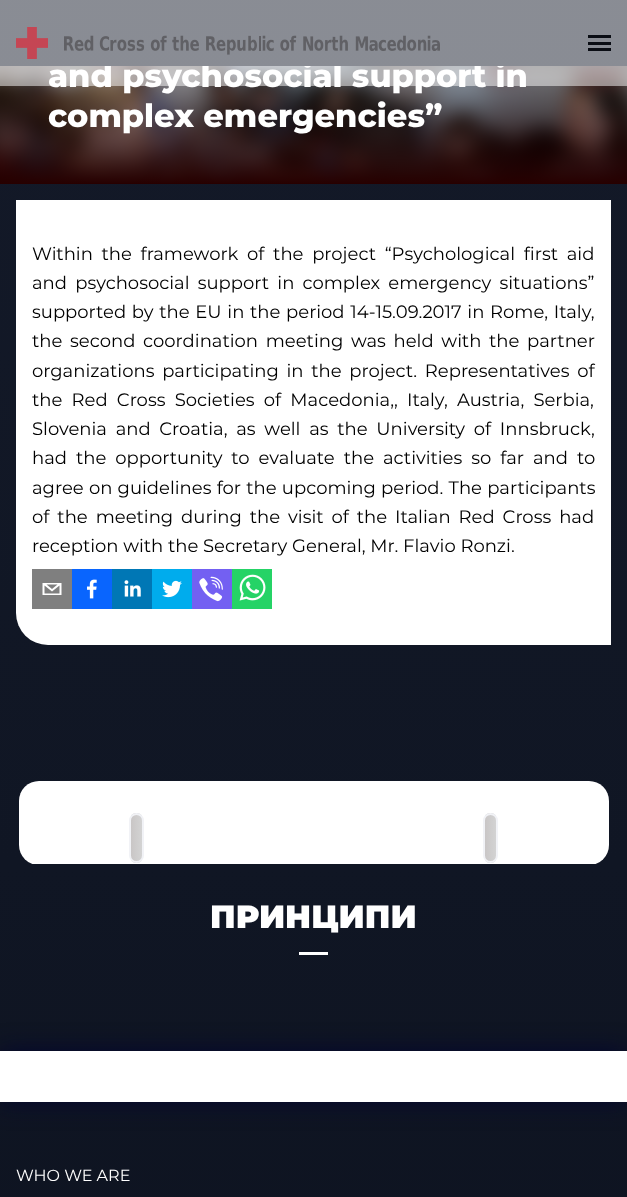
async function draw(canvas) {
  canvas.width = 627
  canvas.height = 1197
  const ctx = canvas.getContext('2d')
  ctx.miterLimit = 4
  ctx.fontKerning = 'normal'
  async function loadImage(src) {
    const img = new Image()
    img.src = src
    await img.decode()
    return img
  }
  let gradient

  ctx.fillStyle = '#fff'
  ctx.fillRect(0, 0, 627, 1197)
  gradient = ctx.createLinearGradient(313, -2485, 314, 865)
  gradient.addColorStop(0, '#1d2334')
  gradient.addColorStop(1, '#101624')
  ctx.fillStyle = gradient
  ctx.fillRect(0, 0, 627, 864)
  ctx.drawImage(await loadImage('image2.png'), 0, 66, 627, 117)
  gradient = ctx.createLinearGradient(314, 66, 314, 184)
  gradient.addColorStop(0.1, '#0000002e')
  gradient.addColorStop(1, '#270000')
  ctx.fillStyle = gradient
  ctx.fillRect(0, 66, 627, 118)
  ctx.save()
  ctx.beginPath()
  ctx.rect(0, 66, 627, 118)
  ctx.clip()
  ctx.font = '800 32px Montserrat'
  ctx.fillStyle = '#fff'
  ctx.fillText('and psychosocial support in', 48, 87)
  ctx.restore()
  ctx.fillStyle = '#ffffff80'
  ctx.fillRect(0, 0, 627, 86)
  ctx.drawImage(await loadImage('image0.png'), 16, 27, 32, 32)
  ctx.drawImage(await loadImage('image1.png'), 64, 35, 376, 20)
  ctx.fillStyle = '#0a0d14'
  ctx.fillRect(588, 35, 23, 3)
  ctx.fillRect(588, 42, 23, 3)
  ctx.fillRect(588, 48, 23, 3)
  ctx.font = '800 32px Montserrat'
  ctx.fillStyle = '#fff'
  ctx.fillText('complex emergencies”', 48, 127)
  ctx.beginPath()
  ctx.roundRect(16, 200, 595, 445, [0, 0, 0, 32])
  ctx.fill()
  ctx.wordSpacing = '4px'
  ctx.font = '18px Montserrat'
  ctx.fillStyle = '#000'
  ctx.fillText('Within the framework of the project “Psychological first aid', 32, 260)
  ctx.wordSpacing = '3.5px'
  ctx.fillText('and psychosocial support in complex emergency situations”', 32, 289)
  ctx.wordSpacing = '1px'
  ctx.fillText('supported by the EU in the period 14-15.09.2017 in Rome, Italy,', 32, 318)
  ctx.wordSpacing = '3px'
  ctx.fillText('the second coordination meeting was held with the partner', 32, 347)
  ctx.fillText('organizations participating in the project. Representatives of', 32, 377)
  ctx.wordSpacing = '4.5px'
  ctx.fillText('the Red Cross Societies of Macedonia,, Italy, Austria, Serbia,', 32, 406)
  ctx.wordSpacing = '4px'
  ctx.fillText('Slovenia and Croatia, as well as the University of Innsbruck,', 32, 435)
  ctx.wordSpacing = '4.25px'
  ctx.fillText('had the opportunity to evaluate the activities so far and to', 32, 464)
  ctx.wordSpacing = '0.5px'
  ctx.fillText('agree on guidelines for the upcoming period. The participants', 32, 494)
  ctx.wordSpacing = '3.25px'
  ctx.fillText('of the meeting during the visit of the Italian Red Cross had', 32, 523)
  ctx.wordSpacing = '0px'
  ctx.fillText('reception with the Secretary General, Mr. Flavio Ronzi.', 32, 552)
  ctx.fillStyle = '#7f7f7f'
  ctx.fillRect(32, 569, 40, 40)
  ctx.fillStyle = '#fff'
  ctx.beginPath()
  ctx.moveTo(42.5, 583)
  ctx.lineTo(42.5, 595)
  ctx.lineTo(61.5, 595)
  ctx.lineTo(61.5, 583)
  ctx.closePath()
  ctx.moveTo(57.5, 584.5)
  ctx.lineTo(52, 589)
  ctx.lineTo(46.5, 584.5)
  ctx.closePath()
  ctx.moveTo(44.5, 593.5)
  ctx.lineTo(44.5, 585.5)
  ctx.lineTo(52, 591.5)
  ctx.lineTo(59.5, 585.5)
  ctx.lineTo(59.5, 593.5)
  ctx.closePath()
  ctx.fill()
  ctx.drawImage(await loadImage('image3.png'), 72, 569, 40, 40)
  ctx.drawImage(await loadImage('image4.png'), 112, 569, 40, 40)
  ctx.drawImage(await loadImage('image5.png'), 152, 569, 40, 40)
  ctx.drawImage(await loadImage('image6.png'), 192, 569, 40, 40)
  ctx.drawImage(await loadImage('image7.png'), 232, 569, 40, 40)
  ctx.beginPath()
  ctx.roundRect(19, 781, 590, 84, 20)
  ctx.fill()
  ctx.save()
  ctx.beginPath()
  ctx.roundRect(129, 813, 15, 50, 7.5)
  ctx.clip()
  gradient = ctx.createLinearGradient(131, 838, 142, 838)
  gradient.addColorStop(0, '#c9c6c6')
  gradient.addColorStop(1, '#d3d3d3')
  ctx.fillStyle = gradient
  ctx.fillRect(131, 813, 11, 50)
  ctx.restore()
  ctx.beginPath()
  ctx.roundRect(130, 814, 13, 48, 6.5)
  ctx.strokeStyle = '#f1f2f6'
  ctx.lineWidth = 2
  ctx.stroke()
  ctx.save()
  ctx.beginPath()
  ctx.roundRect(483, 813, 15, 50, 7.5)
  ctx.clip()
  gradient = ctx.createLinearGradient(485, 838, 496, 838)
  gradient.addColorStop(0, '#c9c6c6')
  gradient.addColorStop(1, '#d3d3d3')
  ctx.fillStyle = gradient
  ctx.fillRect(485, 813, 11, 50)
  ctx.restore()
  ctx.beginPath()
  ctx.roundRect(484, 814, 13, 48, 6.5)
  ctx.stroke()
  gradient = ctx.createLinearGradient(313, 864, 314, 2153)
  gradient.addColorStop(0, '#101624')
  gradient.addColorStop(1, '#0a0f1b')
  ctx.fillStyle = gradient
  ctx.fillRect(0, 864, 627, 333)
  ctx.font = '900 32px Montserrat'
  ctx.fillStyle = '#fff'
  ctx.fillText('ПРИНЦИПИ', 210, 928)
  ctx.fillRect(299, 952, 29, 3)
  ctx.fillStyle = '#03052e'
  ctx.filter = 'blur(12.5px)'
  ctx.beginPath()
  ctx.rect(0, 1051, 627, 51)
  ctx.fill()
  ctx.filter = 'none'
  ctx.fillStyle = '#fff'
  ctx.fillRect(0, 1051, 627, 51)
  ctx.font = '16px Montserrat'
  ctx.fillText('WHO WE ARE', 16, 1181)
}

draw(document.querySelector('canvas'))
